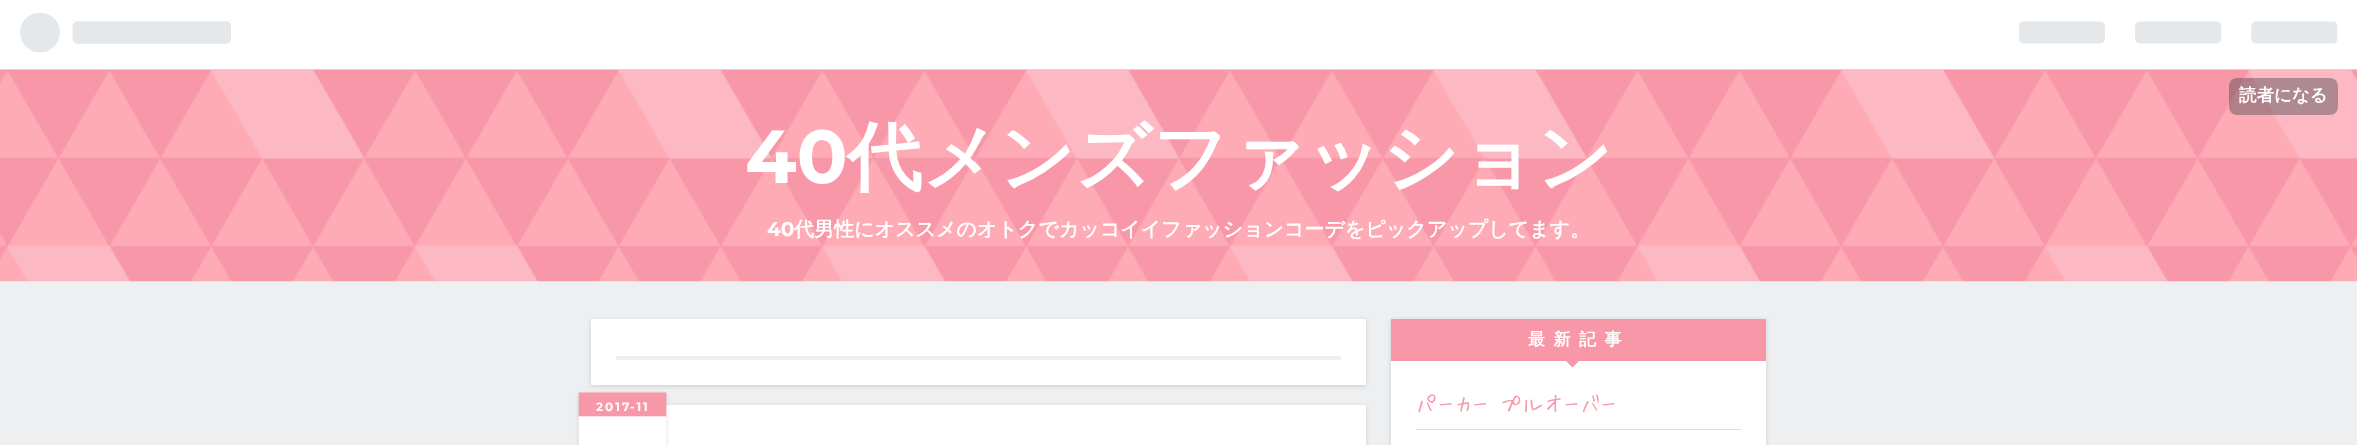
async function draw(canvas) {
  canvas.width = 2357
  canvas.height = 445
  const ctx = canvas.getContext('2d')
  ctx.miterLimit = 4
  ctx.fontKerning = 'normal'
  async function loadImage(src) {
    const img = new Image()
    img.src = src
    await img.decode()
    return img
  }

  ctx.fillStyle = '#edeff1'
  ctx.fillRect(0, 0, 2357, 445)
  ctx.fillStyle = '#fff'
  ctx.fillRect(0, 0, 2357, 69)
  ctx.fillStyle = '#d2d8dd'
  ctx.fillRect(0, 69, 2357, 1)
  ctx.drawImage(await loadImage('image0.png'), 20, 13, 211, 40)
  ctx.drawImage(await loadImage('image1.png'), 2019, 21, 319, 23)
  ctx.drawImage(await loadImage('image2.png'), 0, 70, 2357, 212)
  ctx.fillStyle = '#3d424566'
  ctx.beginPath()
  ctx.roundRect(2229, 78, 109, 37, 8)
  ctx.fill()
  ctx.font = 'bold 17.5px WenQuanYi Zen Hei'
  ctx.fillStyle = '#fff'
  ctx.fillText('読者になる', 2239, 101)
  ctx.font = 'bold 75px Montserrat'
  ctx.fillText('40', 745, 183)
  ctx.font = 'bold 75px WenQuanYi Zen Hei'
  ctx.fillText('代メンズファッション', 847, 183)
  ctx.font = 'bold 20px Montserrat'
  ctx.fillText('40', 767, 236)
  ctx.font = 'bold 20px WenQuanYi Zen Hei'
  ctx.fillText('代男性にオススメのオトクでカッコイイファッションコーデをピックアップしてます。', 794, 236)
  ctx.fillStyle = '#00000026'
  ctx.filter = 'blur(2px)'
  ctx.beginPath()
  ctx.rect(591, 320, 775, 66)
  ctx.fill()
  ctx.filter = 'none'
  ctx.fillStyle = '#fff'
  ctx.fillRect(591, 319, 775, 66)
  ctx.fillStyle = '#edeff1'
  ctx.fillRect(616, 356, 725, 4)
  ctx.fillStyle = '#00000026'
  ctx.filter = 'blur(2px)'
  ctx.beginPath()
  ctx.rect(591, 406, 775, 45)
  ctx.fill()
  ctx.filter = 'none'
  ctx.fillStyle = '#fff'
  ctx.fillRect(666, 405, 700, 40)
  ctx.fillStyle = '#00000026'
  ctx.filter = 'blur(2px)'
  ctx.beginPath()
  ctx.rect(579, 394, 87, 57)
  ctx.fill()
  ctx.filter = 'none'
  ctx.drawImage(await loadImage('image3.png'), 578, 392, 89, 53)
  ctx.letterSpacing = '2px'
  ctx.font = 'bold 12px Montserrat'
  ctx.fillStyle = '#fff'
  ctx.fillText('2017', 596, 411)
  ctx.fillText('-11', 630, 411)
  ctx.fillStyle = '#00000026'
  ctx.filter = 'blur(2px)'
  ctx.beginPath()
  ctx.rect(1391, 320, 375, 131)
  ctx.fill()
  ctx.filter = 'none'
  ctx.fillStyle = '#f797a8'
  ctx.fillRect(1391, 319, 375, 42)
  ctx.letterSpacing = '8.5px'
  ctx.font = 'bold 17px WenQuanYi Zen Hei'
  ctx.fillStyle = '#fff'
  ctx.fillText('最新記事', 1528, 345)
  ctx.fillRect(1391, 361, 375, 84)
  ctx.fillStyle = '#f797a8'
  ctx.beginPath()
  ctx.moveTo(1566, 361)
  ctx.lineTo(1579, 361)
  ctx.lineTo(1572.5, 367.5)
  ctx.closePath()
  ctx.fill()
  ctx.fillStyle = '#ddd'
  ctx.fillRect(1416, 429, 325, 1)
  ctx.letterSpacing = '0px'
  ctx.font = '22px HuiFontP'
  ctx.fillStyle = '#f797a8'
  ctx.fillText('パーカー プルオーバー', 1416, 410)
}

draw(document.querySelector('canvas'))
